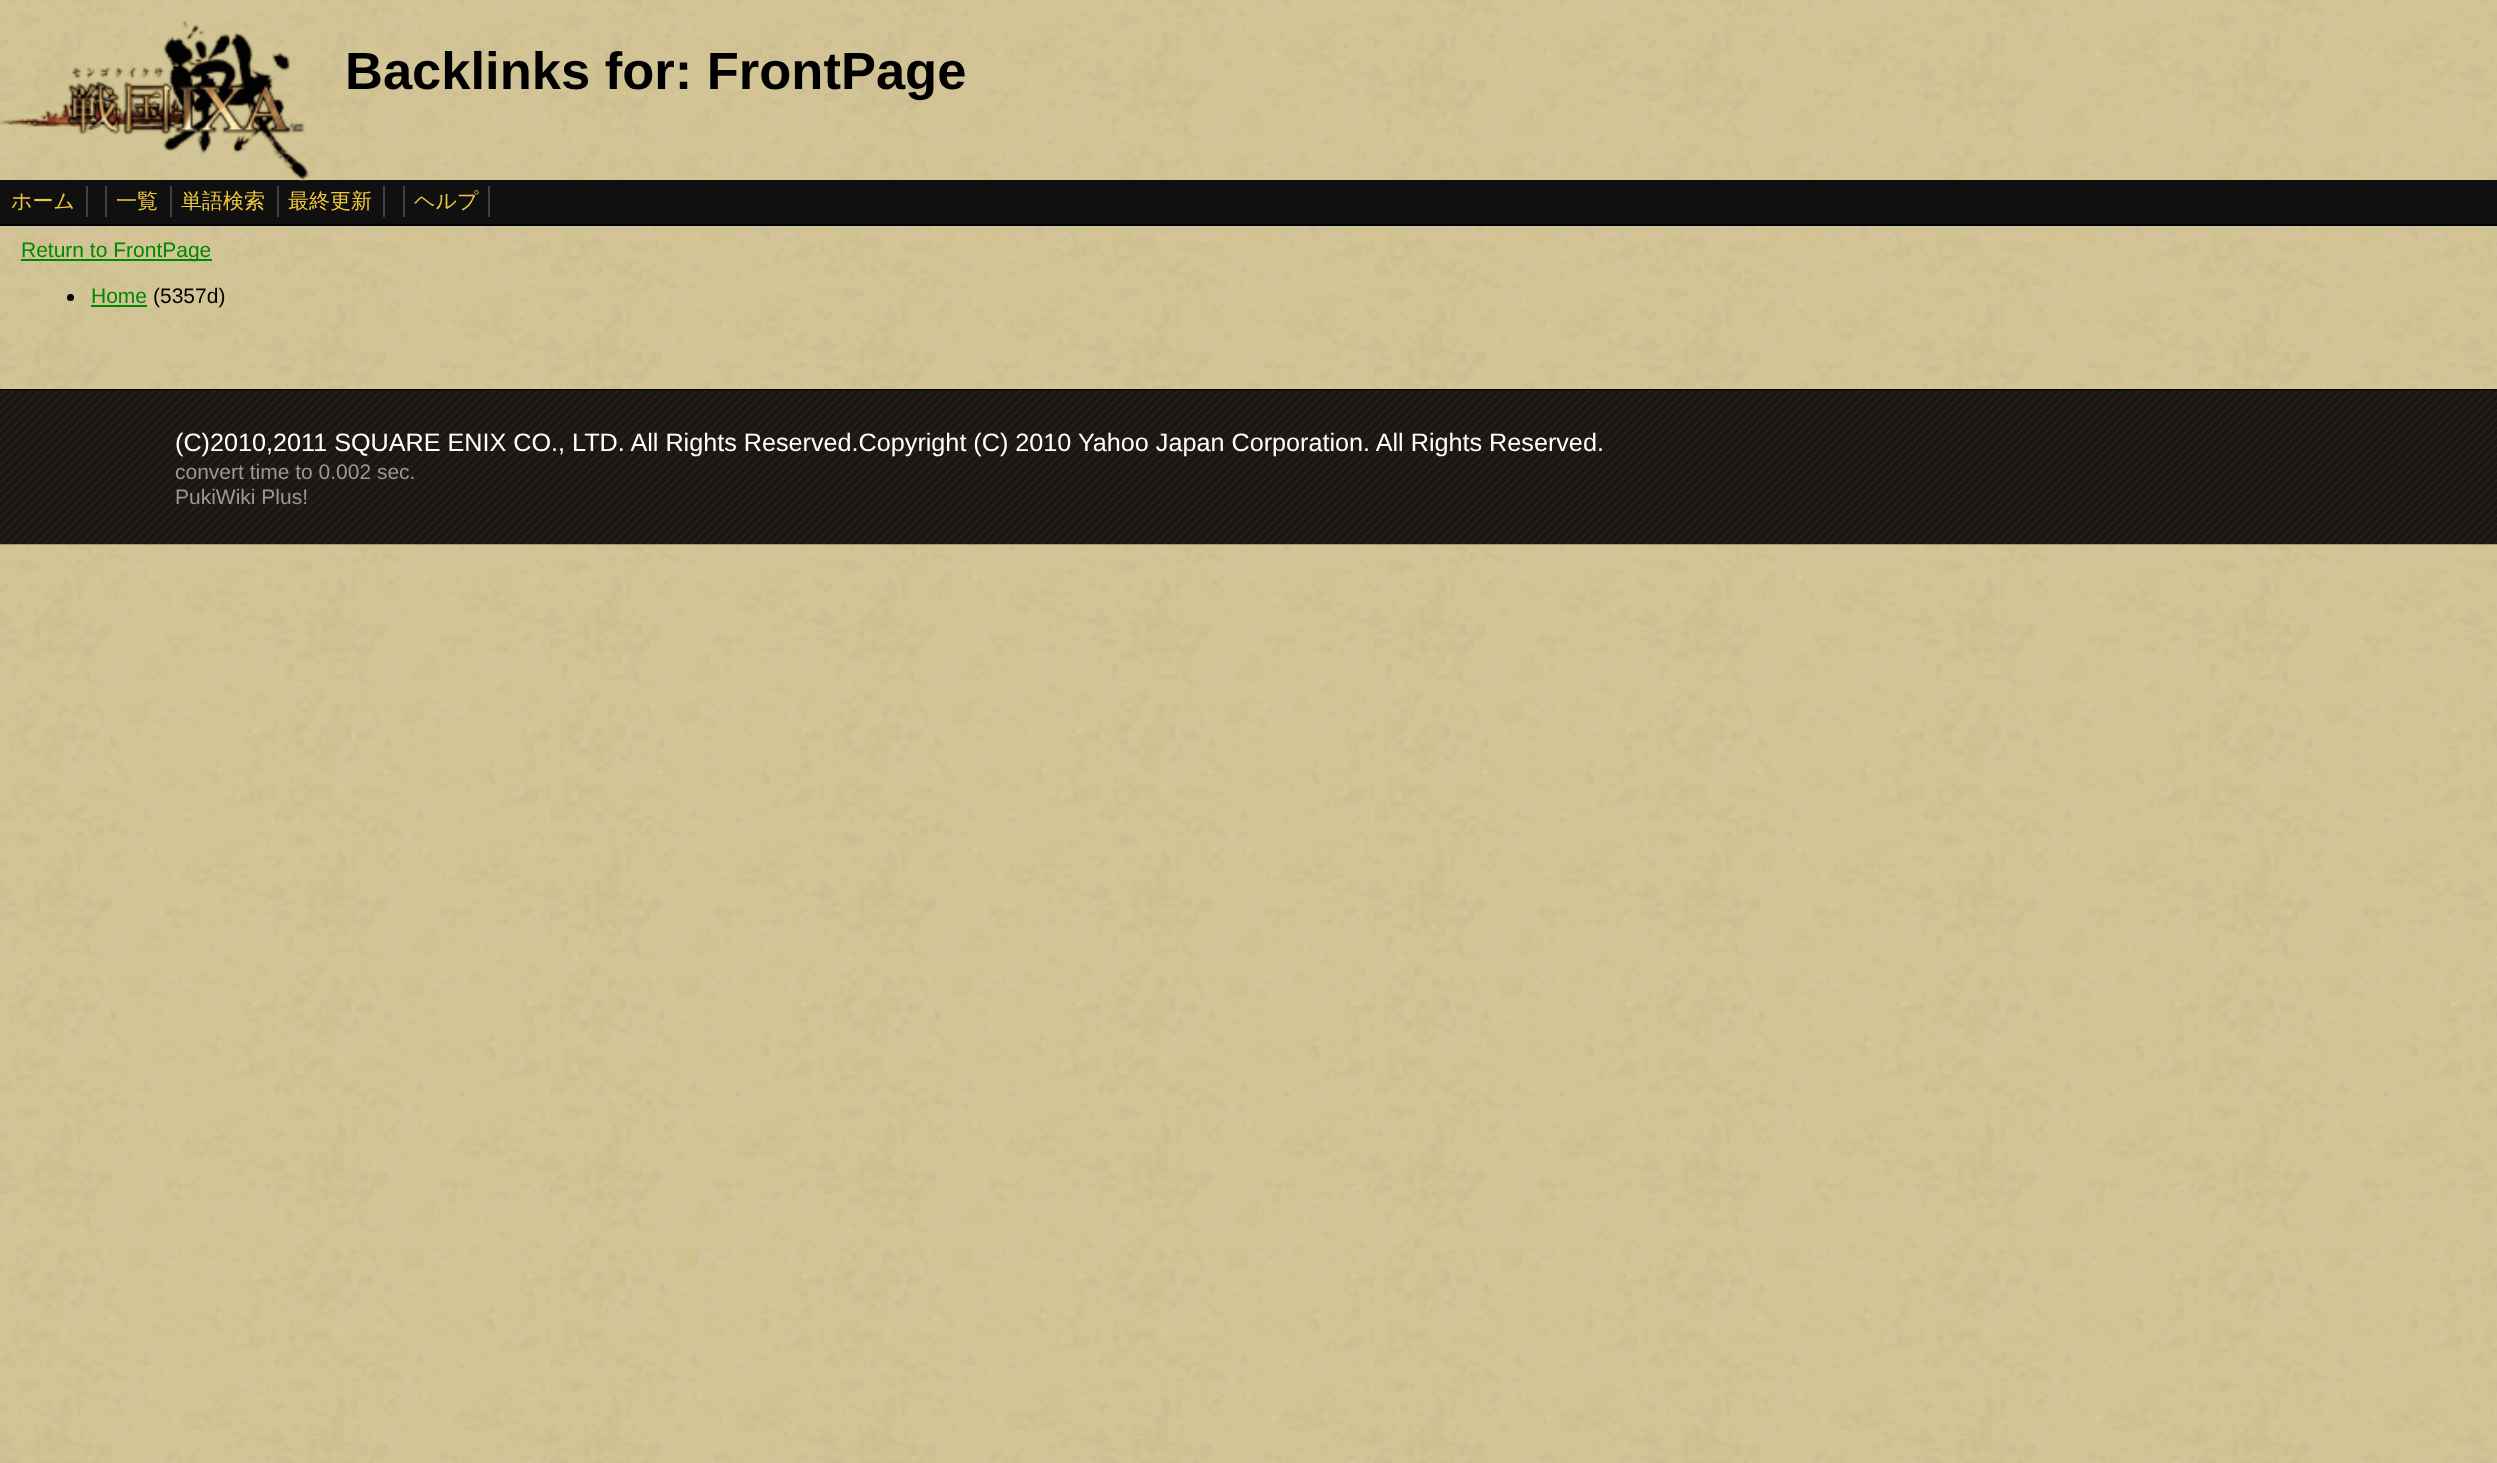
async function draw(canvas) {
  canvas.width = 2497
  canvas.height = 1463
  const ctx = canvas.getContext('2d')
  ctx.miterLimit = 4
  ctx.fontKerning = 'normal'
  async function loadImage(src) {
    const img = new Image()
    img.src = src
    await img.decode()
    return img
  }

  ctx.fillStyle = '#fff'
  ctx.fillRect(0, 0, 2497, 1463)
  ctx.drawImage(await loadImage('image0.png'), 0, 0, 2497, 1463)
  ctx.fillStyle = '#101010'
  ctx.fillRect(0, 180, 2497, 44)
  ctx.drawImage(await loadImage('image1.png'), 0, 21, 310, 160)
  ctx.font = 'bold 52.5px Liberation Sans'
  ctx.fillStyle = '#000'
  ctx.fillText('Backlinks for: FrontPage', 345, 89)
  ctx.font = '500 21px WenQuanYi Zen Hei'
  ctx.fillStyle = '#f0c83d'
  ctx.fillText('ホーム', 11, 208)
  ctx.fillStyle = '#404040'
  ctx.fillRect(86, 186, 2, 31)
  ctx.fillRect(105, 186, 2, 31)
  ctx.fillStyle = '#f0c83d'
  ctx.fillText('一覧', 116, 208)
  ctx.fillStyle = '#404040'
  ctx.fillRect(170, 186, 2, 31)
  ctx.fillStyle = '#f0c83d'
  ctx.fillText('単語検索', 181, 208)
  ctx.fillStyle = '#404040'
  ctx.fillRect(277, 186, 2, 31)
  ctx.fillStyle = '#f0c83d'
  ctx.fillText('最終更新', 288, 208)
  ctx.fillStyle = '#404040'
  ctx.fillRect(383, 186, 2, 31)
  ctx.fillRect(403, 186, 2, 31)
  ctx.fillStyle = '#f0c83d'
  ctx.fillText('ヘルプ', 414, 208)
  ctx.fillStyle = '#404040'
  ctx.fillRect(488, 186, 2, 31)
  ctx.fillStyle = '#000'
  ctx.fillRect(0, 224, 2497, 2)
  ctx.fillRect(0, 389, 2497, 2)
  ctx.fillStyle = '#080'
  ctx.fillRect(21, 259, 191, 2)
  ctx.font = '21px Liberation Sans'
  ctx.fillText('Return to FrontPage', 21, 257)
  ctx.fillStyle = '#000'
  ctx.beginPath()
  ctx.arc(70.5, 297.5, 3.5, 0, 2 * Math.PI)
  ctx.fill()
  ctx.fillStyle = '#080'
  ctx.fillText('Home', 91, 303)
  ctx.fillRect(91, 305, 56, 2)
  ctx.fillStyle = '#000'
  ctx.fillText('(5357d)', 153, 303)
  ctx.drawImage(await loadImage('image2.png'), 0, 390, 2497, 155)
  ctx.font = '25.2px Liberation Sans'
  ctx.fillStyle = '#fff'
  ctx.fillText('(C)2010,2011 SQUARE ENIX CO., LTD. All Rights Reserved.Copyright (C) 2010 Yahoo Japan Corporation. All Rights Reserved.', 175, 451)
  ctx.font = '21px Liberation Sans'
  ctx.fillStyle = '#999'
  ctx.fillText('convert time to 0.002 sec.', 175, 479)
  ctx.fillText('PukiWiki Plus!', 175, 504)
}

draw(document.querySelector('canvas'))
